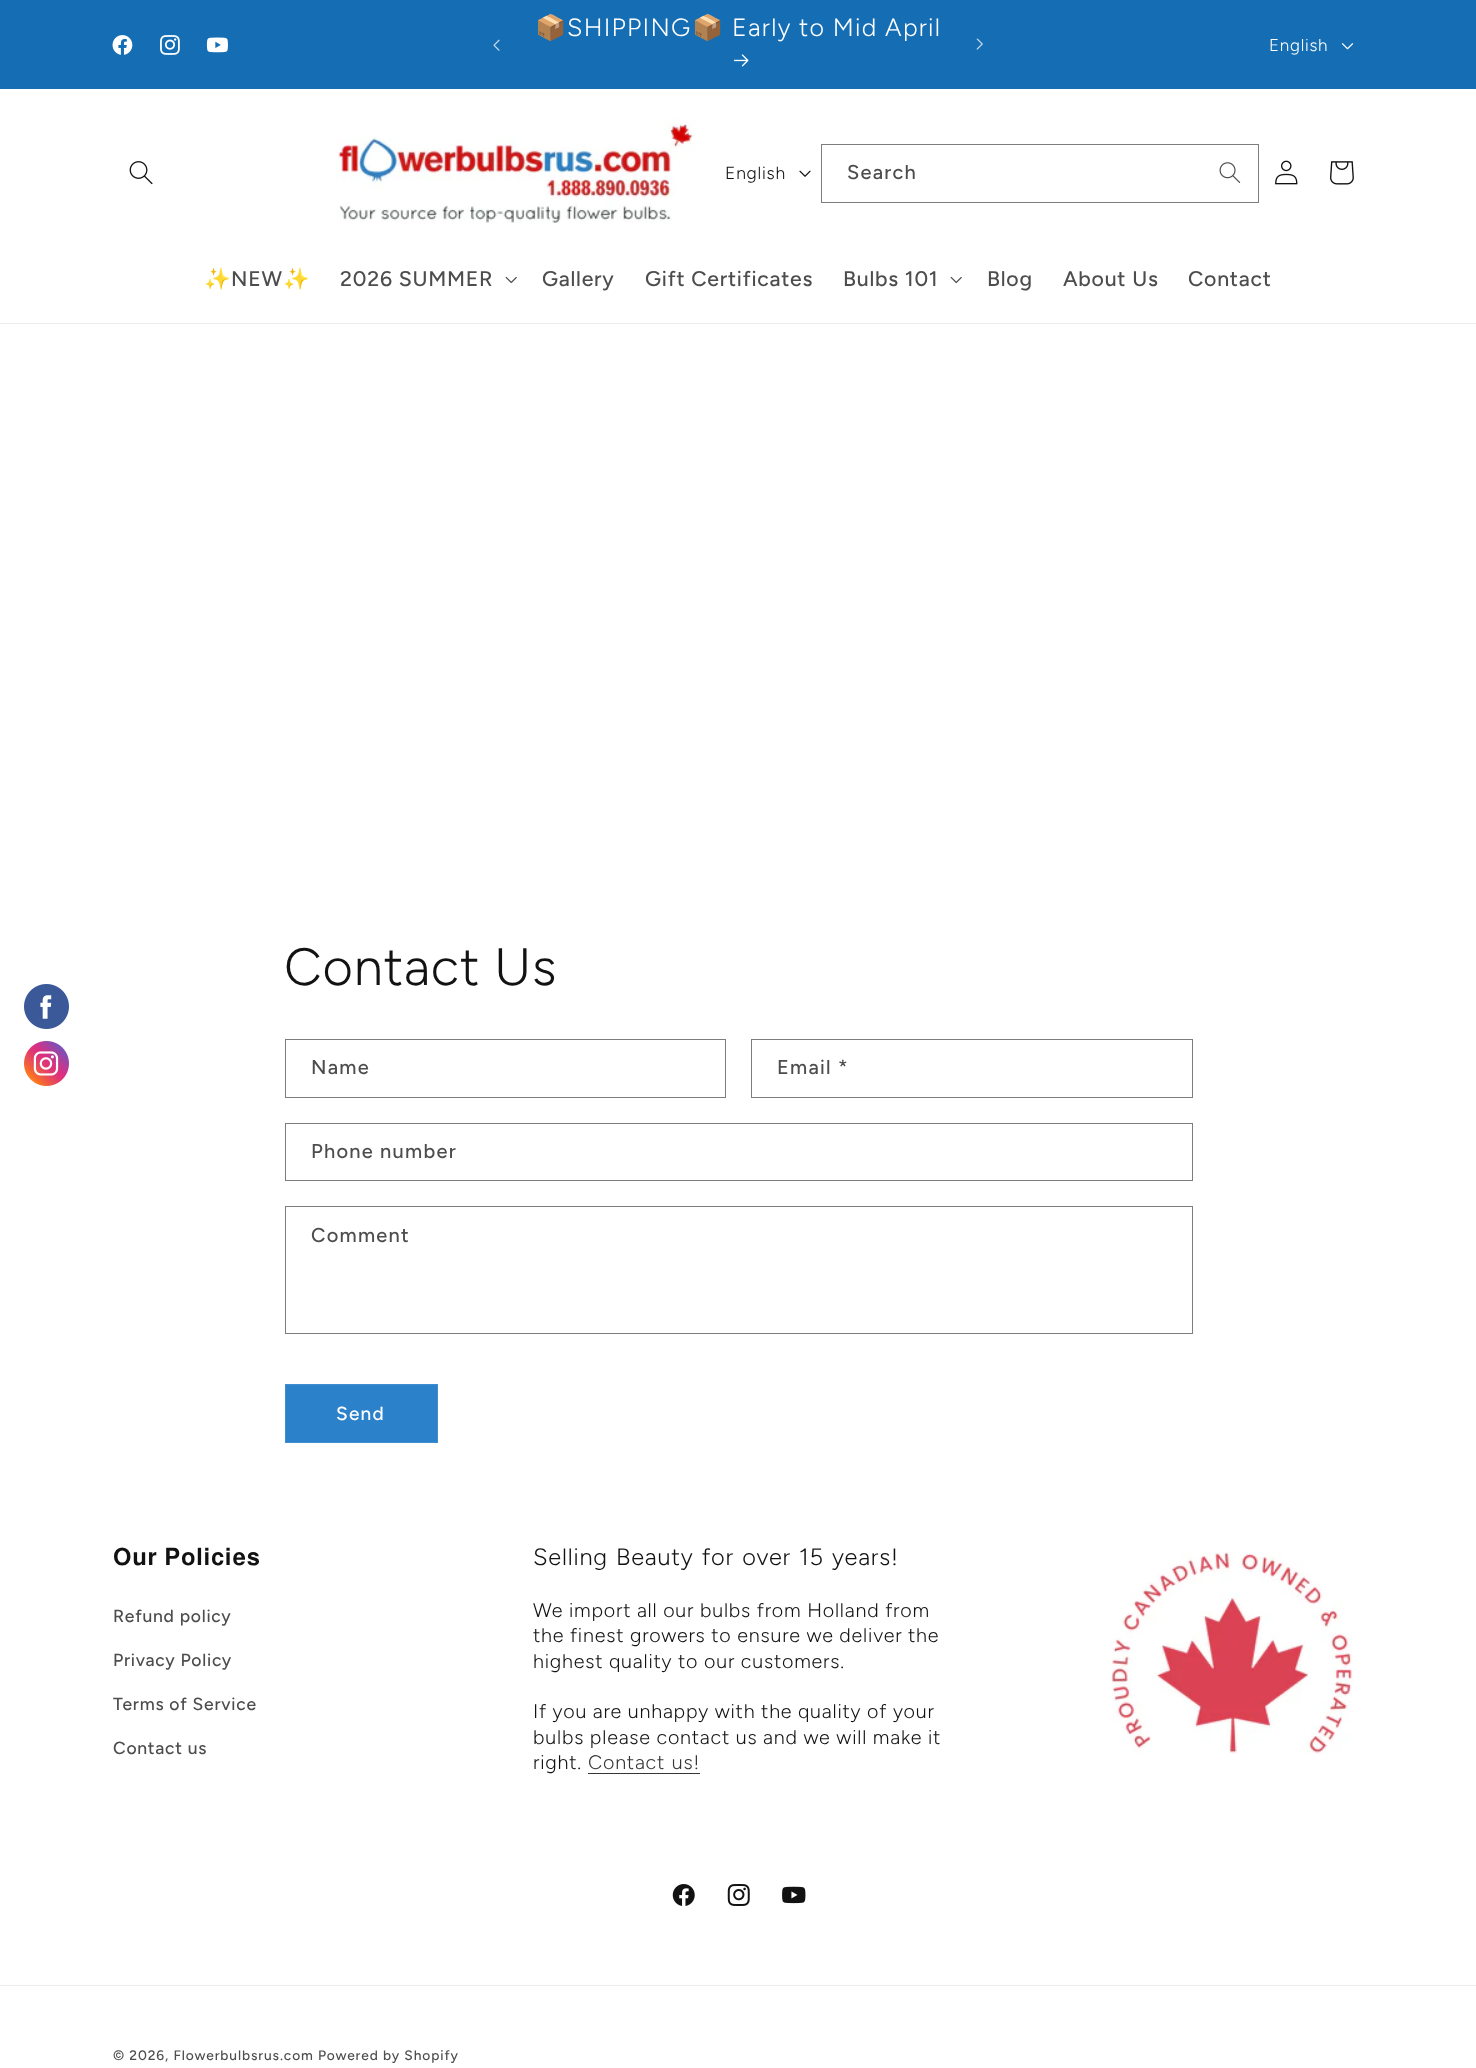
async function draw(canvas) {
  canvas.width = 1476
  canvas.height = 2068
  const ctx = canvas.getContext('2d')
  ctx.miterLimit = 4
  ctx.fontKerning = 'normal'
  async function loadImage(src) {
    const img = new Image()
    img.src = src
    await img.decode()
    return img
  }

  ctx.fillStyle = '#fff'
  ctx.fillRect(0, 0, 1476, 2068)
  ctx.fillStyle = '#156eb4'
  ctx.fillRect(0, 0, 1476, 89)
  ctx.letterSpacing = '1.25px'
  ctx.font = '25px Noto Color Emoji'
  ctx.fillStyle = '#fff'
  ctx.fillText('📦', 535, 36)
  ctx.font = '300 25px Figtree'
  ctx.fillText('SHIPPING', 567, 36)
  ctx.font = '25px Noto Color Emoji'
  ctx.fillText('📦', 692, 36)
  ctx.font = '300 25px Figtree'
  ctx.fillText('Early to Mid April', 732, 36)
  ctx.drawImage(await loadImage('image0.png'), 734, 54, 15, 13)
  ctx.drawImage(await loadImage('image1.png'), 493, 39, 7, 12)
  ctx.drawImage(await loadImage('image2.png'), 976, 38, 7, 12)
  ctx.drawImage(await loadImage('image3.png'), 112, 35, 21, 20)
  ctx.drawImage(await loadImage('image4.png'), 160, 35, 20, 20)
  ctx.drawImage(await loadImage('image5.png'), 206, 37, 22, 16)
  ctx.letterSpacing = '0.75px'
  ctx.font = '300 17px Figtree'
  ctx.fillText('English', 1269, 51)
  ctx.drawImage(await loadImage('image6.png'), 1341, 43, 13, 7)
  ctx.fillStyle = '#ececec'
  ctx.fillRect(0, 323, 1476, 1)
  ctx.drawImage(await loadImage('image7.png'), 129, 161, 24, 24)
  ctx.drawImage(await loadImage('image8.png'), 335, 119, 360, 104)
  ctx.font = '300 17.5px Figtree'
  ctx.fillStyle = '#121212'
  ctx.fillText('English', 725, 179)
  ctx.drawImage(await loadImage('image9.png'), 799, 170, 12, 7)
  ctx.drawImage(await loadImage('image10.png'), 1219, 162, 22, 21)
  ctx.strokeStyle = '#7d7d7d'
  ctx.strokeRect(821.5, 144.5, 437, 58)
  ctx.letterSpacing = '1.25px'
  ctx.font = '500 20px Figtree'
  ctx.fillStyle = '#4d4d4d'
  ctx.fillText('Search', 847, 179)
  ctx.drawImage(await loadImage('image11.png'), 1275, 160, 23, 25)
  ctx.drawImage(await loadImage('image12.png'), 1330, 161, 24, 24)
  ctx.letterSpacing = '0.75px'
  ctx.font = '21.25px Noto Color Emoji'
  ctx.fillText('✨', 204, 286)
  ctx.font = '500 21.25px Figtree'
  ctx.fillText('NEW', 231, 286)
  ctx.font = '21.25px Noto Color Emoji'
  ctx.fillText('✨', 283, 286)
  ctx.font = '500 21.25px Figtree'
  ctx.fillText('2026 SUMMER', 340, 286)
  ctx.drawImage(await loadImage('image13.png'), 505, 276, 12, 8)
  ctx.fillText('Gallery', 542, 286)
  ctx.fillText('Gift Certificates', 645, 286)
  ctx.fillText('Bulbs 101', 843, 286)
  ctx.drawImage(await loadImage('image13.png'), 950, 276, 12, 8)
  ctx.fillText('Blog', 987, 286)
  ctx.fillText('About Us', 1063, 286)
  ctx.fillText('Contact', 1188, 286)
  ctx.drawImage(await loadImage('image14.png'), 24, 984, 45, 45)
  ctx.drawImage(await loadImage('image15.png'), 24, 1041, 45, 45)
  ctx.letterSpacing = '0.8px'
  ctx.font = '300 52.5px Figtree'
  ctx.fillStyle = '#121212'
  ctx.fillText('Contact Us', 284, 985)
  ctx.strokeRect(285.5, 1039.5, 440, 58)
  ctx.letterSpacing = '1.25px'
  ctx.font = '500 20px Figtree'
  ctx.fillStyle = '#4d4d4d'
  ctx.fillText('Name', 311, 1074)
  ctx.strokeRect(751.5, 1039.5, 441, 58)
  ctx.fillText('Email *', 777, 1074)
  ctx.strokeRect(285.5, 1123.5, 907, 57)
  ctx.fillText('Phone number', 311, 1158)
  ctx.strokeRect(285.5, 1206.5, 907, 127)
  ctx.fillText('Comment', 311, 1242)
  ctx.fillStyle = '#2b82ca'
  ctx.fillRect(286, 1385, 151, 57)
  ctx.strokeStyle = '#408ecf'
  ctx.strokeRect(285.5, 1384.5, 152, 58)
  ctx.font = '500 19px Figtree'
  ctx.fillStyle = '#fff'
  ctx.fillText('Send', 336, 1420)
  ctx.letterSpacing = '0.8px'
  ctx.font = '23.6px FreeSans'
  ctx.fillStyle = '#121212'
  ctx.fillText('𝐎𝐮𝐫 𝐏𝐨𝐥𝐢𝐜𝐢𝐞𝐬', 113, 1565)
  ctx.letterSpacing = '0.75px'
  ctx.font = '500 17.5px Figtree'
  ctx.fillStyle = '#4d4d4d'
  ctx.fillText('Refund policy', 113, 1622)
  ctx.fillText('Privacy Policy', 113, 1666)
  ctx.fillText('Terms of Service', 113, 1710)
  ctx.fillText('Contact us', 113, 1754)
  ctx.letterSpacing = '0.8px'
  ctx.wordSpacing = '1.5px'
  ctx.font = '300 23.6px Figtree'
  ctx.fillStyle = '#121212'
  ctx.fillText('Selling Beauty for over 15 years!', 533, 1565)
  ctx.wordSpacing = '0px'
  ctx.font = '300 19.7px Figtree'
  ctx.fillText('We import all our bulbs from Holland from', 533, 1617)
  ctx.fillText('the finest growers to ensure we deliver the', 533, 1642)
  ctx.fillText('highest quality to our customers.', 533, 1668)
  ctx.fillText('If you are unhappy with the quality of your', 533, 1718)
  ctx.fillText('bulbs please contact us and we will make it', 533, 1744)
  ctx.fillText('right.', 533, 1769)
  ctx.wordSpacing = '1px'
  ctx.fillStyle = '#363636'
  ctx.fillText('Contact us!', 588, 1769)
  ctx.fillRect(588, 1773, 112, 1)
  ctx.drawImage(await loadImage('image16.png'), 1110, 1552, 243, 202)
  ctx.drawImage(await loadImage('image17.png'), 672, 1884, 23, 22)
  ctx.drawImage(await loadImage('image18.png'), 727, 1884, 23, 22)
  ctx.drawImage(await loadImage('image19.png'), 782, 1886, 24, 18)
  ctx.fillStyle = '#ececec'
  ctx.fillRect(0, 1985, 1476, 1)
  ctx.letterSpacing = '0.9px'
  ctx.wordSpacing = '0px'
  ctx.font = '500 13.75px Figtree'
  ctx.fillStyle = '#4d4d4d'
  ctx.fillText('© 2026, Flowerbulbsrus.com', 113, 2060)
  ctx.fillText('Powered by Shopify', 318, 2060)
}

draw(document.querySelector('canvas'))
